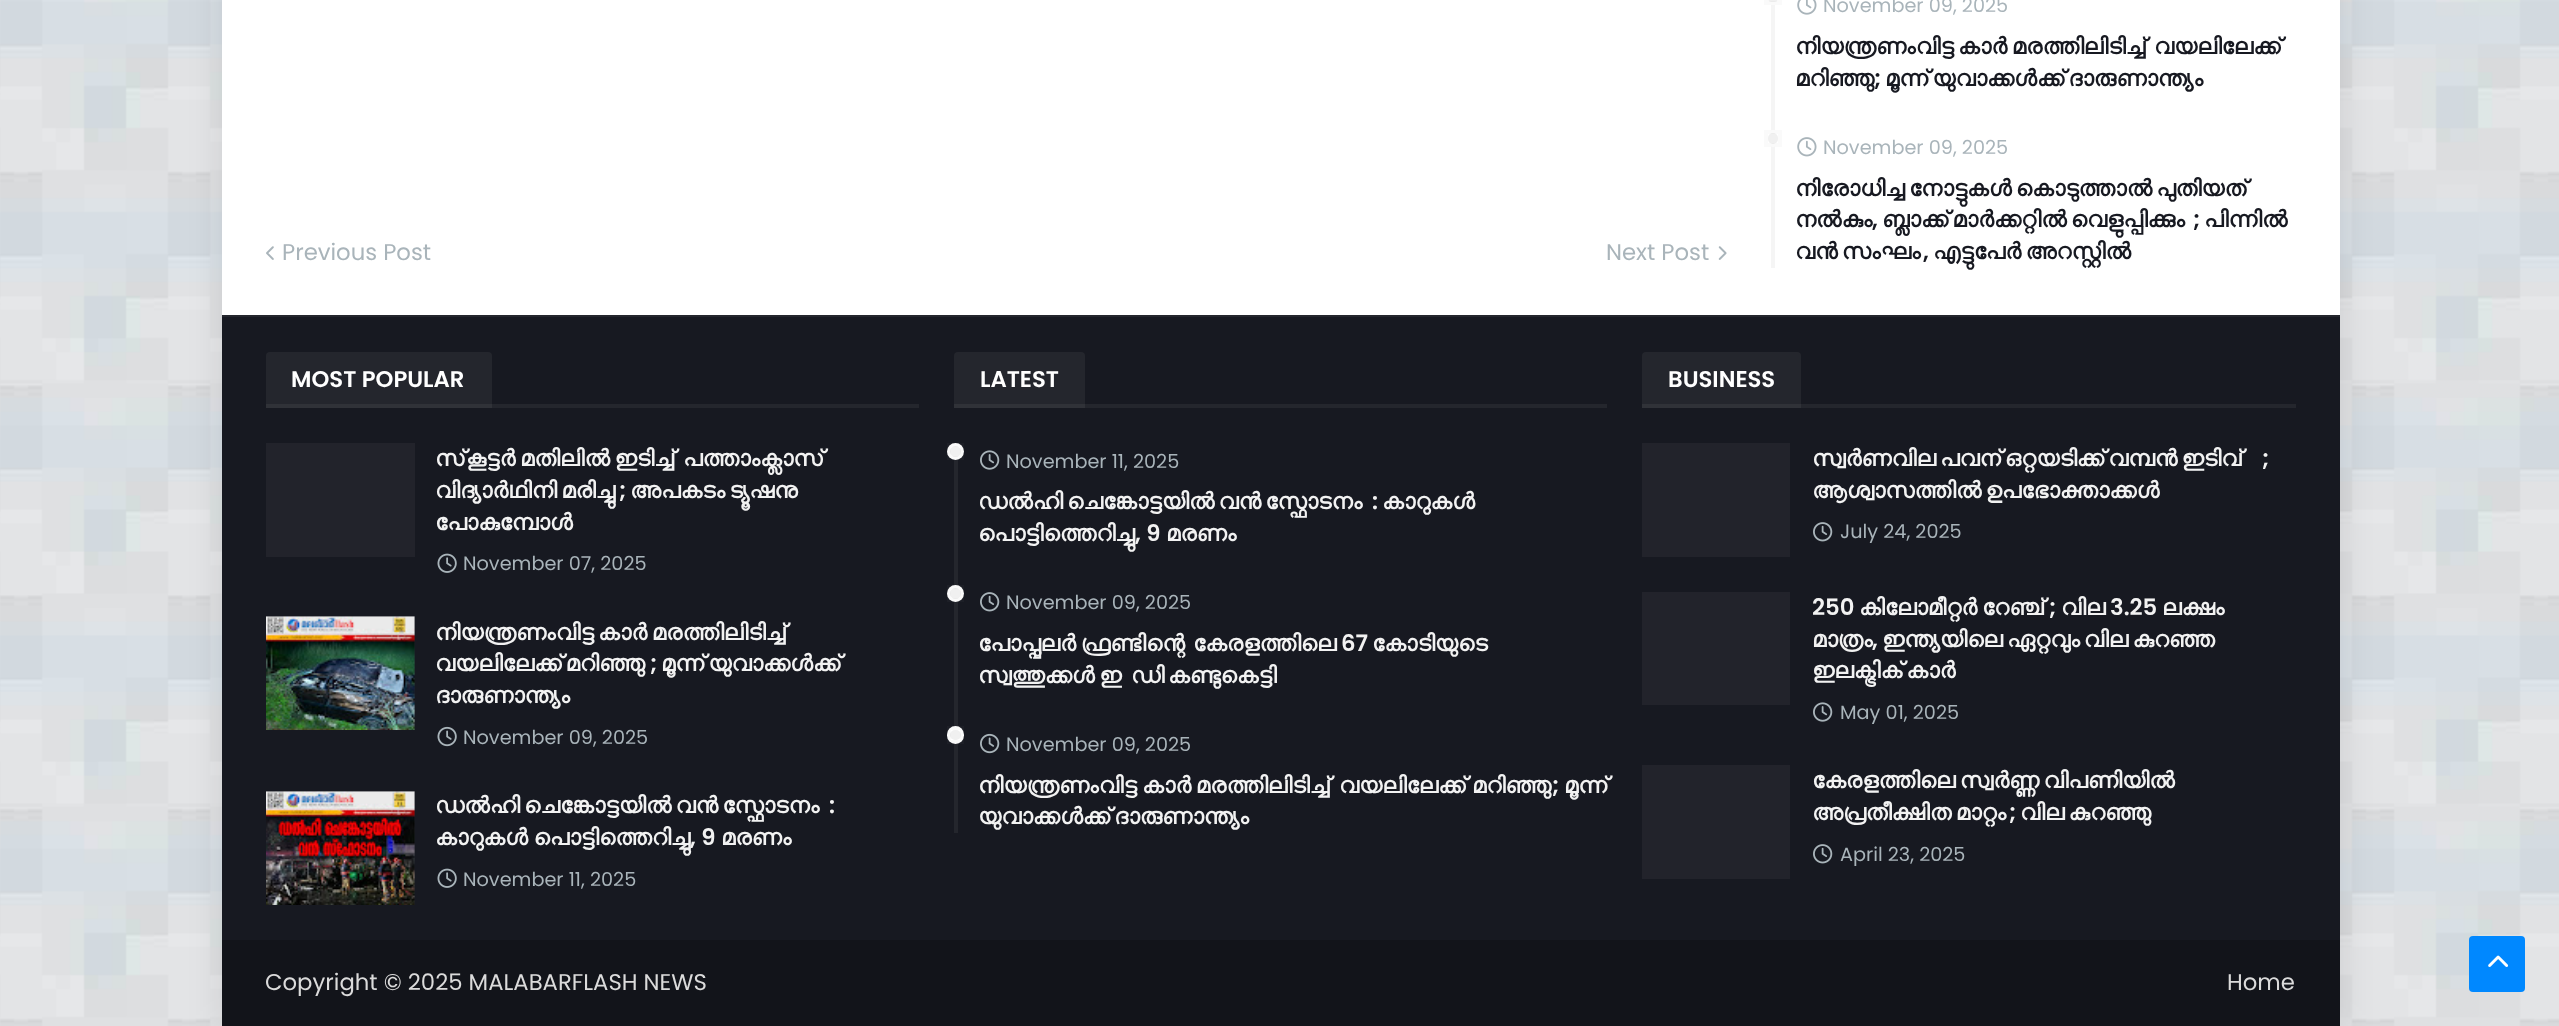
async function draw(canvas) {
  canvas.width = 2559
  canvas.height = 1026
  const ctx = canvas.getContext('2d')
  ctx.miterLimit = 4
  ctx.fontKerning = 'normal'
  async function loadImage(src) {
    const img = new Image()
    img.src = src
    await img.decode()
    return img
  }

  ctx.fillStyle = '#fff'
  ctx.fillRect(0, 0, 2559, 1026)
  ctx.drawImage(await loadImage('image0.png'), 0, 0, 2559, 1026)
  ctx.fillStyle = '#0000001a'
  ctx.filter = 'blur(17.5px)'
  ctx.beginPath()
  ctx.rect(222, -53, 2118, 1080)
  ctx.fill()
  ctx.filter = 'none'
  ctx.fillStyle = '#fff'
  ctx.fillRect(222, 0, 2118, 315)
  ctx.drawImage(await loadImage('image1.png'), 266, 246, 8, 14)
  ctx.font = '22.75px Poppins'
  ctx.fillStyle = '#a9b4ba'
  ctx.fillText('Previous Post', 282, 260)
  ctx.fillText('Next Post', 1606, 260)
  ctx.drawImage(await loadImage('image2.png'), 1718, 246, 9, 14)
  ctx.fillStyle = '#f5f5f5'
  ctx.fillRect(1771, 0, 4, 268)
  ctx.fillStyle = '#fff'
  ctx.beginPath()
  ctx.roundRect(1764, -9, 18, 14, 8.5)
  ctx.fill()
  ctx.fillStyle = '#f0f0f0'
  ctx.beginPath()
  ctx.roundRect(1768, -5, 10, 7, 5)
  ctx.fill()
  ctx.strokeStyle = '#9b9b9b0d'
  ctx.lineWidth = 4
  ctx.strokeRect(1766, -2, 14, 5)
  ctx.drawImage(await loadImage('image3.png'), 1797, 0, 20, 15)
  ctx.font = '19.25px Poppins'
  ctx.fillStyle = '#a9b4ba'
  ctx.fillText('November 09, 2025', 1823, 12)
  ctx.font = 'bold 22.75px FreeSans'
  ctx.fillStyle = '#171921'
  ctx.fillText('നിയന്ത്രണംവിട്ട', 1795, 54)
  ctx.wordSpacing = '-1px'
  ctx.fillText('കാര്‍ മരത്തിലിടിച്ച്', 1958, 54)
  ctx.wordSpacing = '0px'
  ctx.fillText('വയലിലേക്ക്', 2154, 54)
  ctx.fillText('മറിഞ്ഞു', 1795, 86)
  ctx.font = '600 22.75px Poppins'
  ctx.fillText(';', 1874, 86)
  ctx.wordSpacing = '-1.5px'
  ctx.font = 'bold 22.75px FreeSans'
  ctx.fillText('മൂന്ന് യുവാക്കള്‍ക്ക് ദാരുണാന്ത്യം', 1885, 86)
  ctx.fillStyle = '#fff'
  ctx.beginPath()
  ctx.roundRect(1764, 130, 18, 17, 8.5)
  ctx.fill()
  ctx.fillStyle = '#f0f0f0'
  ctx.beginPath()
  ctx.roundRect(1768, 133, 10, 11, 5)
  ctx.fill()
  ctx.strokeRect(1766, 132, 14, 13)
  ctx.drawImage(await loadImage('image4.png'), 1797, 137, 20, 20)
  ctx.wordSpacing = '0px'
  ctx.font = '19.25px Poppins'
  ctx.fillStyle = '#a9b4ba'
  ctx.fillText('November 09, 2025', 1823, 154)
  ctx.wordSpacing = '-1.5px'
  ctx.font = 'bold 22.75px FreeSans'
  ctx.fillStyle = '#171921'
  ctx.fillText('നിരോധിച്ച നോട്ടുകൾ കൊടുത്താൽ പുതിയത്', 1795, 196)
  ctx.wordSpacing = '0px'
  ctx.fillText('നൽകും', 1795, 227)
  ctx.font = '600 22.75px Poppins'
  ctx.fillText(',', 1872, 227)
  ctx.wordSpacing = '-1.5px'
  ctx.font = 'bold 22.75px FreeSans'
  ctx.fillText('ബ്ലാക്ക് മാർക്കറ്റിൽ വെളുപ്പിക്കും', 1882, 227)
  ctx.wordSpacing = '0px'
  ctx.font = '600 22.75px Poppins'
  ctx.fillText(';', 2193, 227)
  ctx.font = 'bold 22.75px FreeSans'
  ctx.fillText('പിന്നിൽ', 2204, 227)
  ctx.wordSpacing = '-1.5px'
  ctx.fillText('വൻ സംഘം', 1795, 259)
  ctx.wordSpacing = '0px'
  ctx.font = '600 22.75px Poppins'
  ctx.fillText(',', 1923, 259)
  ctx.wordSpacing = '-1.5px'
  ctx.font = 'bold 22.75px FreeSans'
  ctx.fillText('എട്ടുപേർ അറസ്റ്റിൽ', 1933, 259)
  ctx.fillRect(222, 317, 2118, 623)
  ctx.fillStyle = '#24262d'
  ctx.fillRect(222, 315, 2118, 2)
  ctx.fillRect(266, 404, 653, 4)
  ctx.fillStyle = '#9b9b9b1a'
  ctx.beginPath()
  ctx.roundRect(266, 352, 226, 56, [4, 4, 0, 0])
  ctx.fill()
  ctx.wordSpacing = '0px'
  ctx.font = '600 22.75px Poppins'
  ctx.fillStyle = '#fff'
  ctx.fillText('MOST POPULAR', 291, 387)
  ctx.fillStyle = '#22232b'
  ctx.fillRect(266, 443, 149, 114)
  ctx.save()
  ctx.beginPath()
  ctx.rect(436, 443, 483, 138)
  ctx.clip()
  ctx.font = 'bold 22.75px FreeSans'
  ctx.fillStyle = '#f2f2f2'
  ctx.fillText('സ്', 435, 466)
  ctx.restore()
  ctx.font = 'bold 22.75px FreeSans'
  ctx.fillStyle = '#f2f2f2'
  ctx.fillText('കൂട്ടർ', 466, 466)
  ctx.wordSpacing = '-1px'
  ctx.fillText('മതിലില്‍ ഇടിച്ച്', 520, 466)
  ctx.wordSpacing = '0px'
  ctx.fillText('പത്താംക്ലാസ്', 683, 466)
  ctx.save()
  ctx.beginPath()
  ctx.rect(436, 443, 483, 138)
  ctx.clip()
  ctx.wordSpacing = '-1.5px'
  ctx.fillText('വിദ്യാര്‍ഥിനി മരിച്ചു', 435, 498)
  ctx.restore()
  ctx.font = '600 22.75px Poppins'
  ctx.fillText(';', 619, 498)
  ctx.wordSpacing = '-1.5px'
  ctx.font = 'bold 22.75px FreeSans'
  ctx.fillText('അപകടം ട്യൂഷനു', 630, 498)
  ctx.wordSpacing = '0px'
  ctx.fillText('പോകുമ്പോൾ', 435, 530)
  ctx.drawImage(await loadImage('image5.png'), 437, 553, 20, 20)
  ctx.font = '19.25px Poppins'
  ctx.fillStyle = '#a9b4ba'
  ctx.fillText('November 07, 2025', 463, 570)
  ctx.fillStyle = '#22232b'
  ctx.fillRect(266, 616, 149, 114)
  ctx.drawImage(await loadImage('image6.png'), 266, 616, 149, 114)
  ctx.save()
  ctx.beginPath()
  ctx.rect(436, 616, 483, 140)
  ctx.clip()
  ctx.font = 'bold 22.75px FreeSans'
  ctx.fillStyle = '#f2f2f2'
  ctx.fillText('നിയന്ത്രണംവിട്ട', 435, 640)
  ctx.restore()
  ctx.wordSpacing = '-1px'
  ctx.font = 'bold 22.75px FreeSans'
  ctx.fillStyle = '#f2f2f2'
  ctx.fillText('കാര്‍ മരത്തിലിടിച്ച്', 598, 640)
  ctx.wordSpacing = '-1.5px'
  ctx.fillText('വയലിലേക്ക് മറിഞ്ഞു', 435, 671)
  ctx.wordSpacing = '0px'
  ctx.font = '600 22.75px Poppins'
  ctx.fillText(';', 650, 671)
  ctx.wordSpacing = '-1.5px'
  ctx.font = 'bold 22.75px FreeSans'
  ctx.fillText('മൂന്ന് യുവാക്കള്‍ക്ക്', 661, 671)
  ctx.wordSpacing = '0px'
  ctx.fillText('ദാരുണാന്ത്യം', 435, 703)
  ctx.drawImage(await loadImage('image7.png'), 437, 726, 20, 21)
  ctx.font = '19.25px Poppins'
  ctx.fillStyle = '#a9b4ba'
  ctx.fillText('November 09, 2025', 463, 744)
  ctx.fillStyle = '#22232b'
  ctx.fillRect(266, 791, 149, 114)
  ctx.drawImage(await loadImage('image8.png'), 266, 791, 149, 114)
  ctx.wordSpacing = '-1.5px'
  ctx.font = 'bold 22.75px FreeSans'
  ctx.fillStyle = '#f2f2f2'
  ctx.fillText('ഡൽഹി ചെങ്കോട്ടയിൽ വൻ സ്ഫോടനം', 435, 813)
  ctx.wordSpacing = '0px'
  ctx.font = '600 22.75px Poppins'
  ctx.fillText(':', 829, 813)
  ctx.font = 'bold 22.75px FreeSans'
  ctx.fillText('കാറുകൾ പൊട്ടിത്തെറിച്ചു', 435, 845)
  ctx.font = '600 22.75px Poppins'
  ctx.fillText(', 9', 690, 845)
  ctx.font = 'bold 22.75px FreeSans'
  ctx.fillText('മരണം', 721, 845)
  ctx.drawImage(await loadImage('image5.png'), 437, 868, 20, 20)
  ctx.font = '19.25px Poppins'
  ctx.fillStyle = '#a9b4ba'
  ctx.fillText('November 11, 2025', 463, 886)
  ctx.fillStyle = '#24262d'
  ctx.fillRect(954, 404, 653, 4)
  ctx.fillStyle = '#9b9b9b1a'
  ctx.beginPath()
  ctx.roundRect(954, 352, 131, 56, [4, 4, 0, 0])
  ctx.fill()
  ctx.font = '600 22.75px Poppins'
  ctx.fillStyle = '#fff'
  ctx.fillText('LATEST', 980, 387)
  ctx.fillStyle = '#24262d'
  ctx.fillRect(954, 443, 4, 390)
  ctx.fillStyle = '#fff'
  ctx.beginPath()
  ctx.arc(955.5, 451.5, 8.5, 0, 2 * Math.PI)
  ctx.fill()
  ctx.fillStyle = '#f0f0f0'
  ctx.beginPath()
  ctx.arc(955.5, 451.5, 5.5, 0, 2 * Math.PI)
  ctx.fill()
  ctx.strokeRect(949, 445, 13, 13)
  ctx.drawImage(await loadImage('image9.png'), 980, 450, 20, 20)
  ctx.font = '19.25px Poppins'
  ctx.fillStyle = '#a9b4ba'
  ctx.fillText('November 11, 2025', 1006, 468)
  ctx.wordSpacing = '-1.5px'
  ctx.font = 'bold 22.75px FreeSans'
  ctx.fillStyle = '#f2f2f2'
  ctx.fillText('ഡൽഹി ചെങ്കോട്ടയിൽ വൻ സ്ഫോടനം', 978, 509)
  ctx.wordSpacing = '0px'
  ctx.font = '600 22.75px Poppins'
  ctx.fillText(':', 1372, 509)
  ctx.font = 'bold 22.75px FreeSans'
  ctx.fillText('കാറുകൾ', 1382, 509)
  ctx.fillText('പൊട്ടിത്തെറിച്ചു', 978, 541)
  ctx.font = '600 22.75px Poppins'
  ctx.fillText(', 9', 1135, 541)
  ctx.font = 'bold 22.75px FreeSans'
  ctx.fillText('മരണം', 1166, 541)
  ctx.fillStyle = '#fff'
  ctx.beginPath()
  ctx.arc(955.5, 593.5, 8.5, 0, 2 * Math.PI)
  ctx.fill()
  ctx.fillStyle = '#f0f0f0'
  ctx.beginPath()
  ctx.arc(955.5, 593.5, 5.5, 0, 2 * Math.PI)
  ctx.fill()
  ctx.strokeRect(949, 587, 13, 13)
  ctx.drawImage(await loadImage('image10.png'), 980, 592, 20, 20)
  ctx.font = '19.25px Poppins'
  ctx.fillStyle = '#a9b4ba'
  ctx.fillText('November 09, 2025', 1006, 609)
  ctx.wordSpacing = '-1px'
  ctx.font = 'bold 22.75px FreeSans'
  ctx.fillStyle = '#f2f2f2'
  ctx.fillText('പോപ്പുലര്‍ ഫ്രണ്ടിന്റെ', 978, 651)
  ctx.wordSpacing = '0px'
  ctx.fillText('കേരളത്തിലെ', 1193, 651)
  ctx.font = '600 22.75px Poppins'
  ctx.fillText('67', 1341, 651)
  ctx.font = 'bold 22.75px FreeSans'
  ctx.fillText('കോടിയുടെ', 1372, 651)
  ctx.wordSpacing = '-1px'
  ctx.fillText('സ്വത്തുക്കള്‍ ഇ', 978, 683)
  ctx.wordSpacing = '0px'
  ctx.fillText('ഡി', 1131, 683)
  ctx.fillText('കണ്ടുകെട്ടി', 1168, 683)
  ctx.fillStyle = '#fff'
  ctx.beginPath()
  ctx.roundRect(947, 726, 17, 18, 8.5)
  ctx.fill()
  ctx.fillStyle = '#f0f0f0'
  ctx.beginPath()
  ctx.roundRect(950, 730, 11, 10, 5)
  ctx.fill()
  ctx.strokeRect(949, 728, 13, 14)
  ctx.drawImage(await loadImage('image11.png'), 980, 733, 20, 21)
  ctx.font = '19.25px Poppins'
  ctx.fillStyle = '#a9b4ba'
  ctx.fillText('November 09, 2025', 1006, 751)
  ctx.font = 'bold 22.75px FreeSans'
  ctx.fillStyle = '#f2f2f2'
  ctx.fillText('നിയന്ത്രണംവിട്ട', 978, 793)
  ctx.wordSpacing = '-1px'
  ctx.fillText('കാര്‍ മരത്തിലിടിച്ച്', 1142, 793)
  ctx.wordSpacing = '0px'
  ctx.fillText('വയലിലേക്ക്', 1339, 793)
  ctx.fillText('മറിഞ്ഞു', 1472, 793)
  ctx.font = '600 22.75px Poppins'
  ctx.fillText(';', 1552, 793)
  ctx.font = 'bold 22.75px FreeSans'
  ctx.fillText('മൂന്ന്', 1564, 793)
  ctx.wordSpacing = '-1.5px'
  ctx.fillText('യുവാക്കള്‍ക്ക് ദാരുണാന്ത്യം', 978, 824)
  ctx.fillStyle = '#24262d'
  ctx.fillRect(1642, 404, 654, 4)
  ctx.fillStyle = '#9b9b9b1a'
  ctx.beginPath()
  ctx.roundRect(1642, 352, 159, 56, [4, 4, 0, 0])
  ctx.fill()
  ctx.wordSpacing = '0px'
  ctx.font = '600 22.75px Poppins'
  ctx.fillStyle = '#fff'
  ctx.fillText('BUSINESS', 1668, 387)
  ctx.fillStyle = '#22232b'
  ctx.fillRect(1642, 443, 148, 114)
  ctx.wordSpacing = '-1.5px'
  ctx.font = 'bold 22.75px FreeSans'
  ctx.fillStyle = '#f2f2f2'
  ctx.fillText('സ്വർണവില പവന് ഒറ്റയടിക്ക് വമ്പൻ ഇടിവ്', 1812, 466)
  ctx.wordSpacing = '0px'
  ctx.font = '600 22.75px Poppins'
  ctx.fillText(';', 2262, 466)
  ctx.wordSpacing = '-1.5px'
  ctx.font = 'bold 22.75px FreeSans'
  ctx.fillText('ആശ്വാസത്തിൽ ഉപഭോക്താക്കൾ', 1812, 498)
  ctx.drawImage(await loadImage('image10.png'), 1813, 522, 20, 20)
  ctx.wordSpacing = '0px'
  ctx.font = '19.25px Poppins'
  ctx.fillStyle = '#a9b4ba'
  ctx.fillText('July 24, 2025', 1840, 538)
  ctx.fillStyle = '#22232b'
  ctx.fillRect(1642, 592, 148, 113)
  ctx.font = '600 22.75px Poppins'
  ctx.fillStyle = '#f2f2f2'
  ctx.fillText('250', 1812, 615)
  ctx.wordSpacing = '-1px'
  ctx.font = 'bold 22.75px FreeSans'
  ctx.fillText('കിലോമീറ്റർ റേഞ്ച്', 1859, 615)
  ctx.wordSpacing = '0px'
  ctx.font = '600 22.75px Poppins'
  ctx.fillText(';', 2049, 615)
  ctx.font = 'bold 22.75px FreeSans'
  ctx.fillText('വില', 2061, 615)
  ctx.font = '600 22.75px Poppins'
  ctx.fillText('3.25', 2110, 615)
  ctx.font = 'bold 22.75px FreeSans'
  ctx.fillText('ലക്ഷം', 2162, 615)
  ctx.fillText('മാത്രം', 1812, 647)
  ctx.font = '600 22.75px Poppins'
  ctx.fillText(',', 1872, 647)
  ctx.wordSpacing = '-1.5px'
  ctx.font = 'bold 22.75px FreeSans'
  ctx.fillText('ഇന്ത്യയിലെ ഏറ്റവും വില കുറഞ്ഞ', 1882, 647)
  ctx.fillText('ഇലക്ട്രിക് കാർ', 1812, 678)
  ctx.drawImage(await loadImage('image9.png'), 1813, 702, 20, 20)
  ctx.wordSpacing = '0px'
  ctx.font = '19.25px Poppins'
  ctx.fillStyle = '#a9b4ba'
  ctx.fillText('May 01, 2025', 1840, 719)
  ctx.fillStyle = '#22232b'
  ctx.fillRect(1642, 765, 148, 114)
  ctx.wordSpacing = '-1.5px'
  ctx.font = 'bold 22.75px FreeSans'
  ctx.fillStyle = '#f2f2f2'
  ctx.fillText('കേരളത്തിലെ സ്വർണ്ണ വിപണിയിൽ', 1812, 788)
  ctx.fillText('അപ്രതീക്ഷിത മാറ്റം', 1812, 820)
  ctx.wordSpacing = '0px'
  ctx.font = '600 22.75px Poppins'
  ctx.fillText(';', 2009, 820)
  ctx.wordSpacing = '-1.5px'
  ctx.font = 'bold 22.75px FreeSans'
  ctx.fillText('വില കുറഞ്ഞു', 2020, 820)
  ctx.drawImage(await loadImage('image10.png'), 1813, 844, 20, 20)
  ctx.wordSpacing = '0px'
  ctx.font = '19.25px Poppins'
  ctx.fillStyle = '#a9b4ba'
  ctx.fillText('April 23, 2025', 1840, 861)
  ctx.fillStyle = '#12141a'
  ctx.fillRect(222, 940, 2118, 86)
  ctx.font = '22.75px Poppins'
  ctx.fillStyle = '#dbdbdb'
  ctx.fillText('Copyright © 2025 MALABARFLASH NEWS', 265, 990)
  ctx.fillText('Home', 2227, 990)
  ctx.fillStyle = '#08f'
  ctx.beginPath()
  ctx.roundRect(2469, 936, 56, 56, 4)
  ctx.fill()
  ctx.drawImage(await loadImage('image12.png'), 2488, 955, 21, 12)
}

draw(document.querySelector('canvas'))
